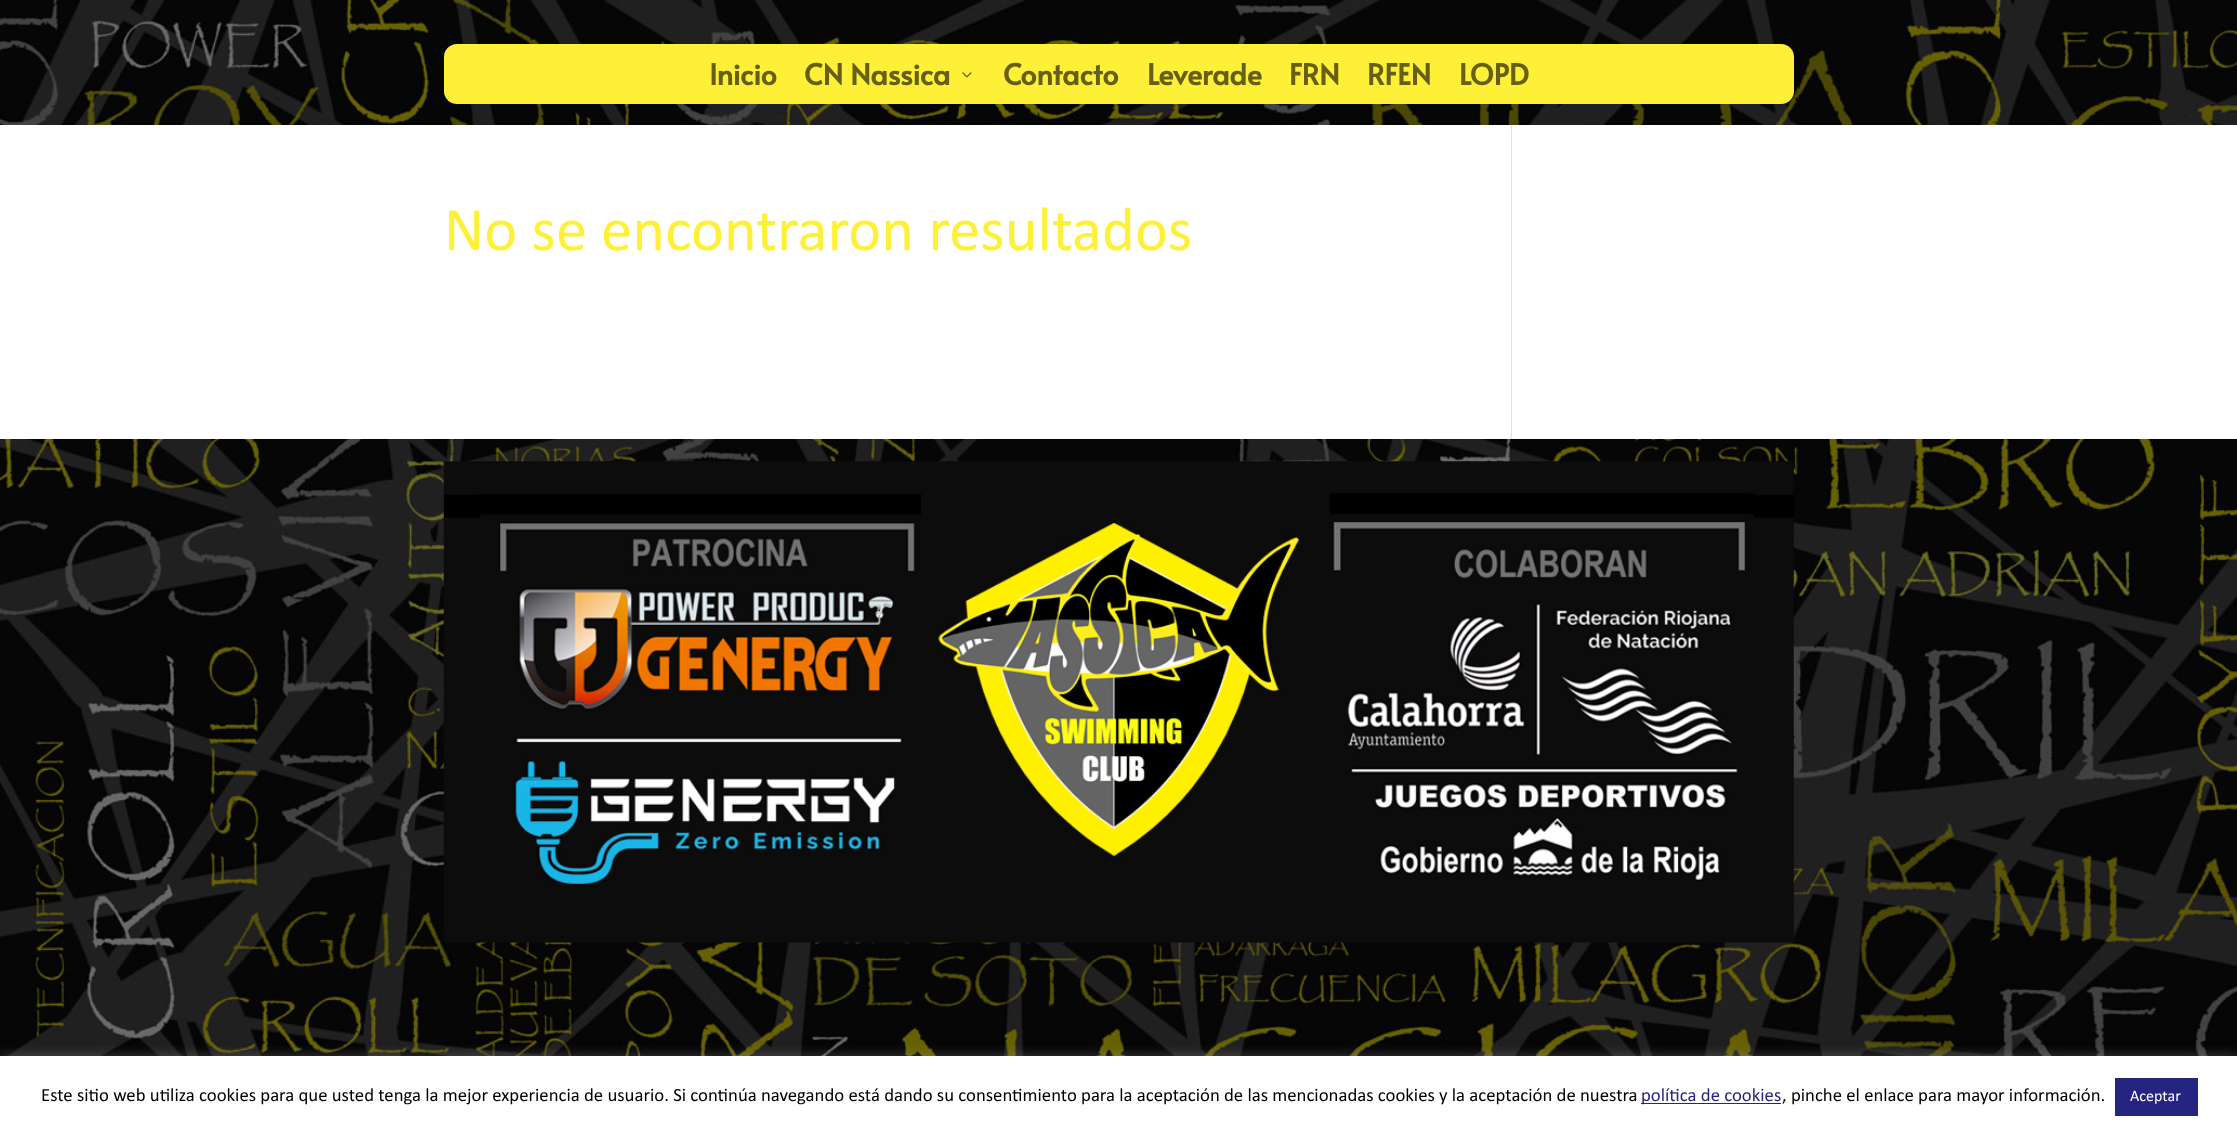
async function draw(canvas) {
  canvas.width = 2237
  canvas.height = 1131
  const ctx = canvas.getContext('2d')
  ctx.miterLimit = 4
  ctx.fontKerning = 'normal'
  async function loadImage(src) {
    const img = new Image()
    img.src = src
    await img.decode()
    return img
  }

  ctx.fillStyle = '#fff'
  ctx.fillRect(0, 0, 2237, 1131)
  ctx.drawImage(await loadImage('image0.png'), 0, 0, 2237, 1056)
  ctx.fillStyle = '#fef037'
  ctx.beginPath()
  ctx.roundRect(444, 44, 1350, 60, 13)
  ctx.fill()
  ctx.font = 'bold 28.75px Alata'
  ctx.fillStyle = '#666016'
  ctx.fillText('Inicio', 709, 85)
  ctx.fillText('CN Nassica', 804, 85)
  ctx.drawImage(await loadImage('image1.png'), 962, 72, 10, 6)
  ctx.fillText('Contacto', 1003, 85)
  ctx.fillText('Leverade', 1147, 85)
  ctx.fillText('FRN', 1289, 85)
  ctx.fillText('RFEN', 1367, 85)
  ctx.fillText('LOPD', 1459, 85)
  ctx.fillStyle = '#fff'
  ctx.fillRect(0, 125, 2237, 314)
  ctx.font = '62.5px Calibri'
  ctx.fillStyle = '#fef037'
  ctx.fillText('No se encontraron resultados', 444, 250)
  ctx.fillStyle = '#e2e2e2'
  ctx.fillRect(1511, 125, 1, 314)
  ctx.drawImage(await loadImage('image2.png'), 443, 461, 1351, 482)
  ctx.fillStyle = '#acabab4d'
  ctx.filter = 'blur(6px)'
  ctx.beginPath()
  ctx.rect(0, 1055, 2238, 75)
  ctx.fill()
  ctx.filter = 'none'
  ctx.fillStyle = '#fff'
  ctx.fillRect(0, 1056, 2237, 75)
  ctx.font = '18.75px Calibri'
  ctx.fillStyle = '#000'
  ctx.fillText('Este sitio web utiliza cookies para que usted tenga la mejor experiencia de usuario. Si continúa navegando está dando su consentimiento para la aceptación de las mencionadas cookies y la aceptación de nuestra', 41, 1101)
  ctx.fillStyle = '#262481'
  ctx.fillRect(1641, 1103, 140, 1)
  ctx.fillText('política de cookies', 1641, 1101)
  ctx.fillStyle = '#000'
  ctx.fillText(', pinche el enlace para mayor información.', 1782, 1101)
  ctx.fillStyle = '#262481'
  ctx.fillRect(2115, 1078, 83, 38)
  ctx.font = '16px Calibri'
  ctx.fillStyle = '#fff'
  ctx.fillText('Aceptar', 2130, 1101)
}

draw(document.querySelector('canvas'))
